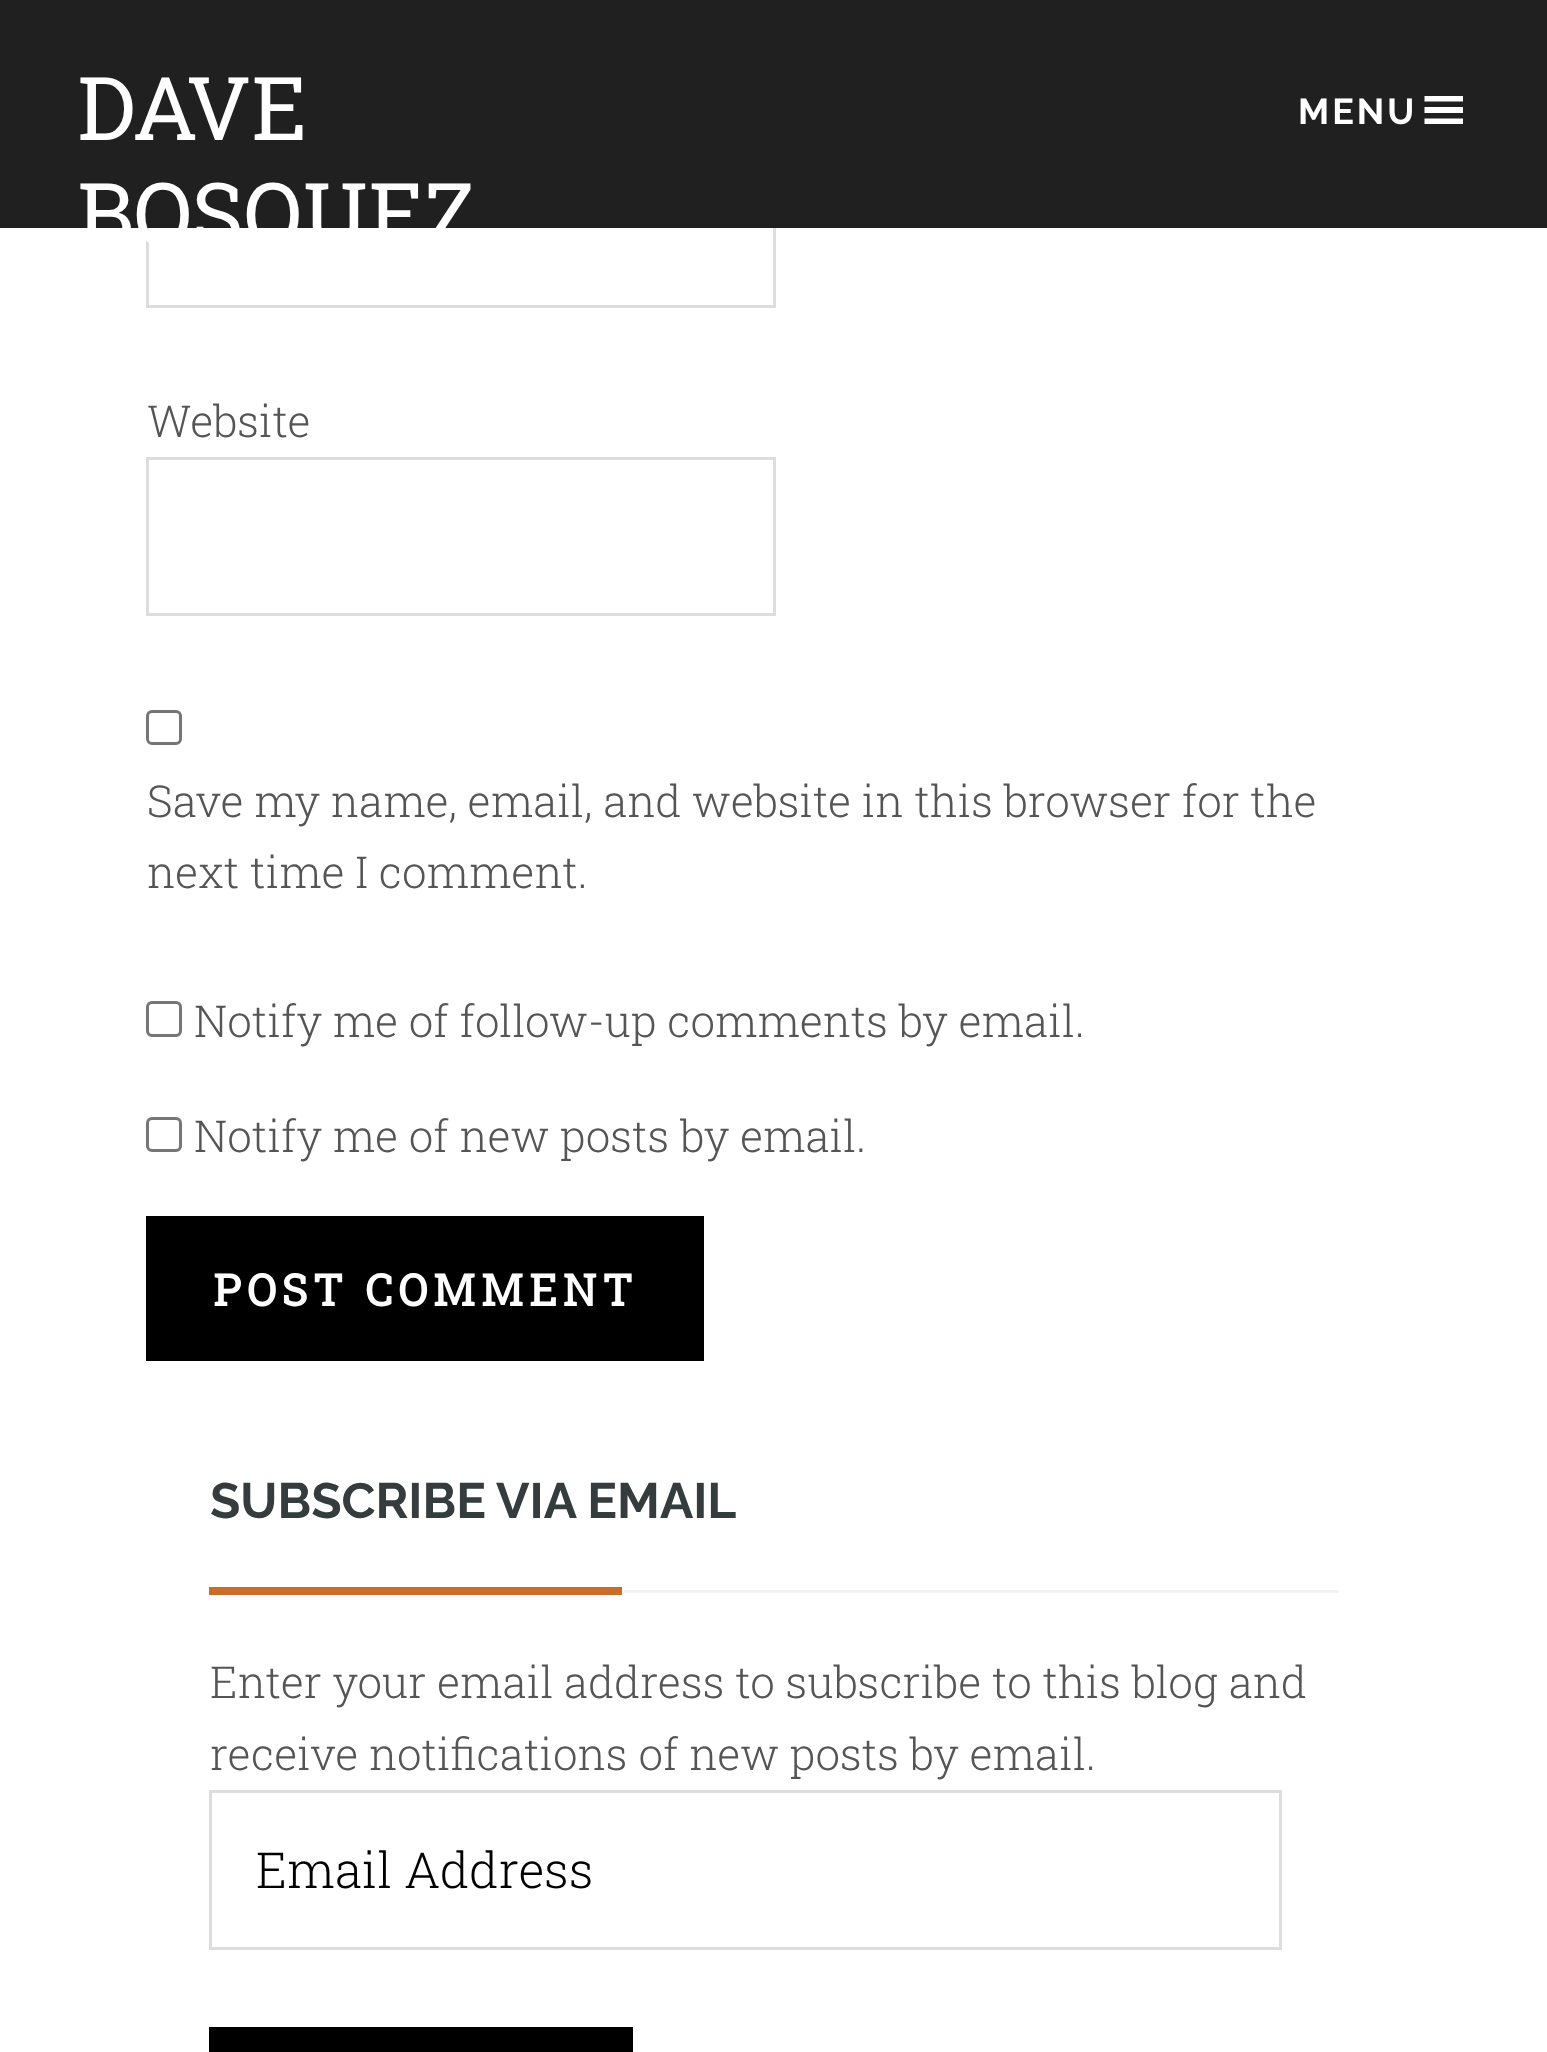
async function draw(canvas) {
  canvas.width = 1547
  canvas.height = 2052
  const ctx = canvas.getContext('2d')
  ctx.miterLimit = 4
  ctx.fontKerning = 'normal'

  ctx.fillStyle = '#fff'
  ctx.fillRect(0, 0, 1547, 2052)
  ctx.strokeStyle = '#ddd'
  ctx.lineWidth = 3
  ctx.strokeRect(147.5, 150.5, 627, 156)
  ctx.fillStyle = '#202020'
  ctx.fillRect(0, 0, 1547, 228)
  ctx.font = '88px Roboto Slab'
  ctx.fillStyle = '#fff'
  ctx.fillText('DAVE', 77, 140)
  ctx.fillText('BOSQUEZ', 77, 246)
  ctx.letterSpacing = '3px'
  ctx.font = 'bold 36px Raleway'
  ctx.fillText('MENU', 1298, 124)
  ctx.beginPath()
  ctx.moveTo(1424.5, 124)
  ctx.lineTo(1463, 124)
  ctx.lineTo(1463, 118.5)
  ctx.lineTo(1424.5, 118.5)
  ctx.closePath()
  ctx.moveTo(1424.5, 96)
  ctx.lineTo(1424.5, 101.5)
  ctx.lineTo(1463, 101.5)
  ctx.lineTo(1463, 96)
  ctx.closePath()
  ctx.moveTo(1424.5, 113)
  ctx.lineTo(1463, 113)
  ctx.lineTo(1463, 107)
  ctx.lineTo(1424.5, 107)
  ctx.closePath()
  ctx.fill()
  ctx.letterSpacing = '0px'
  ctx.font = '300 44px Roboto Slab'
  ctx.fillStyle = '#555'
  ctx.fillText('Website', 147, 437)
  ctx.strokeRect(147.5, 458.5, 627, 156)
  ctx.beginPath()
  ctx.roundRect(147.5, 711.5, 33, 32, 4.5)
  ctx.strokeStyle = '#767676'
  ctx.stroke()
  ctx.fillText('Save my name, email, and website in this browser for the', 147, 817)
  ctx.fillText('next time I comment.', 147, 888)
  ctx.beginPath()
  ctx.roundRect(147.5, 1002.5, 33, 33, 4.5)
  ctx.stroke()
  ctx.fillText('Notify me of follow-up comments by email.', 194, 1037)
  ctx.beginPath()
  ctx.roundRect(147.5, 1118.5, 33, 32, 4.5)
  ctx.stroke()
  ctx.fillText('Notify me of new posts by email.', 194, 1152)
  ctx.fillStyle = '#000'
  ctx.fillRect(146, 1216, 558, 145)
  ctx.letterSpacing = '5.5px'
  ctx.font = 'bold 44px Roboto Slab'
  ctx.fillStyle = '#fff'
  ctx.fillText('POST COMMENT', 213, 1306)
  ctx.fillStyle = '#f3f3f3'
  ctx.fillRect(622, 1590, 717, 3)
  ctx.letterSpacing = '0px'
  ctx.font = 'bold 49.5px Raleway'
  ctx.fillStyle = '#343c3e'
  ctx.fillText('SUBSCRIBE VIA EMAIL', 210, 1518)
  ctx.fillStyle = '#cb6c28'
  ctx.fillRect(209, 1587, 413, 8)
  ctx.font = '300 44px Roboto Slab'
  ctx.fillStyle = '#555'
  ctx.fillText('Enter your email address to subscribe to this blog and', 210, 1698)
  ctx.fillText('receive notifications of new posts by email.', 210, 1770)
  ctx.strokeStyle = '#ddd'
  ctx.strokeRect(210.5, 1791.5, 1070, 157)
  ctx.font = '300 49.5px Roboto Slab'
  ctx.fillStyle = '#000'
  ctx.fillText('Email Address', 256, 1888)
  ctx.fillRect(209, 2027, 424, 25)
}

draw(document.querySelector('canvas'))
